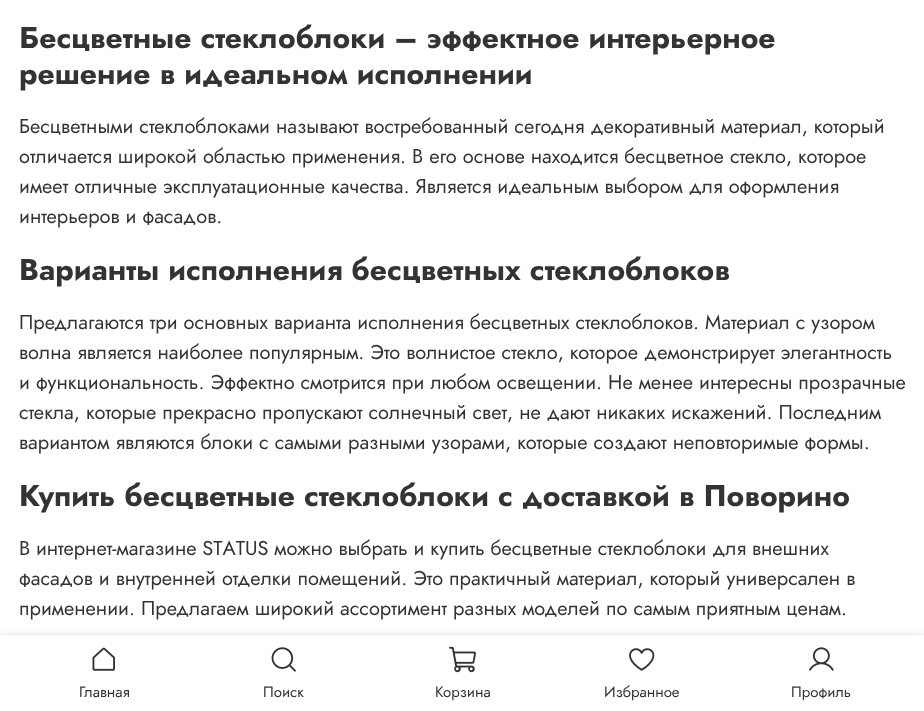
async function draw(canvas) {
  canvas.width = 924
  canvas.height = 711
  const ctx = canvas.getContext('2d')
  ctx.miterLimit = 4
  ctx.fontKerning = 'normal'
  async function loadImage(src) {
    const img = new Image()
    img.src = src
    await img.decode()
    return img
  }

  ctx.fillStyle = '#fff'
  ctx.fillRect(0, 0, 924, 711)
  ctx.font = 'bold 30px Jost'
  ctx.fillStyle = '#333'
  ctx.fillText('Бесцветные стеклоблоки – эффектное интерьерное', 19, 48)
  ctx.fillText('решение в идеальном исполнении', 19, 84)
  ctx.font = '20px Jost'
  ctx.fillText('Бесцветными стеклоблоками называют востребованный сегодня декоративный материал, который', 19, 133)
  ctx.fillText('отличается широкой областью применения. В его основе находится бесцветное стекло, которое', 19, 163)
  ctx.fillText('имеет отличные эксплуатационные качества. Является идеальным выбором для оформления', 19, 193)
  ctx.fillText('интерьеров и фасадов.', 19, 223)
  ctx.font = 'bold 30px Jost'
  ctx.fillText('Варианты исполнения бесцветных стеклоблоков', 19, 280)
  ctx.font = '20px Jost'
  ctx.fillText('Предлагаются три основных варианта исполнения бесцветных стеклоблоков. Материал с узором', 19, 329)
  ctx.fillText('волна является наиболее популярным. Это волнистое стекло, которое демонстрирует элегантность', 19, 359)
  ctx.fillText('и функциональность. Эффектно смотрится при любом освещении. Не менее интересны прозрачные', 19, 389)
  ctx.fillText('стекла, которые прекрасно пропускают солнечный свет, не дают никаких искажений. Последним', 19, 419)
  ctx.fillText('вариантом являются блоки с самыми разными узорами, которые создают неповторимые формы.', 19, 449)
  ctx.font = 'bold 30px Jost'
  ctx.fillText('Купить бесцветные стеклоблоки с доставкой в Поворино', 19, 506)
  ctx.wordSpacing = '-0.25px'
  ctx.font = '20px Jost'
  ctx.fillText('В интернет-магазине STATUS можно выбрать и купить бесцветные стеклоблоки для внешних', 19, 555)
  ctx.wordSpacing = '0px'
  ctx.fillText('фасадов и внутренней отделки помещений. Это практичный материал, который универсален в', 19, 585)
  ctx.fillText('применении. Предлагаем широкий ассортимент разных моделей по самым приятным ценам.', 19, 615)
  ctx.fillStyle = '#0000001f'
  ctx.filter = 'blur(6px)'
  ctx.beginPath()
  ctx.rect(0, 636, 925, 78)
  ctx.fill()
  ctx.filter = 'none'
  ctx.fillStyle = '#fff'
  ctx.fillRect(0, 635, 924, 76)
  ctx.fillStyle = '#ededed'
  ctx.fillRect(0, 634, 924, 1)
  ctx.drawImage(await loadImage('image0.png'), 92, 647, 23, 24)
  ctx.font = '15px Jost'
  ctx.fillStyle = '#333'
  ctx.fillText('Главная', 79, 697)
  ctx.drawImage(await loadImage('image1.png'), 271, 647, 25, 25)
  ctx.fillText('Поиск', 263, 697)
  ctx.drawImage(await loadImage('image2.png'), 449, 646, 27, 27)
  ctx.fillText('Корзина', 435, 697)
  ctx.drawImage(await loadImage('image3.png'), 629, 648, 26, 23)
  ctx.fillText('Избранное', 604, 697)
  ctx.drawImage(await loadImage('image4.png'), 809, 647, 25, 24)
  ctx.fillText('Профиль', 791, 697)
}

draw(document.querySelector('canvas'))
